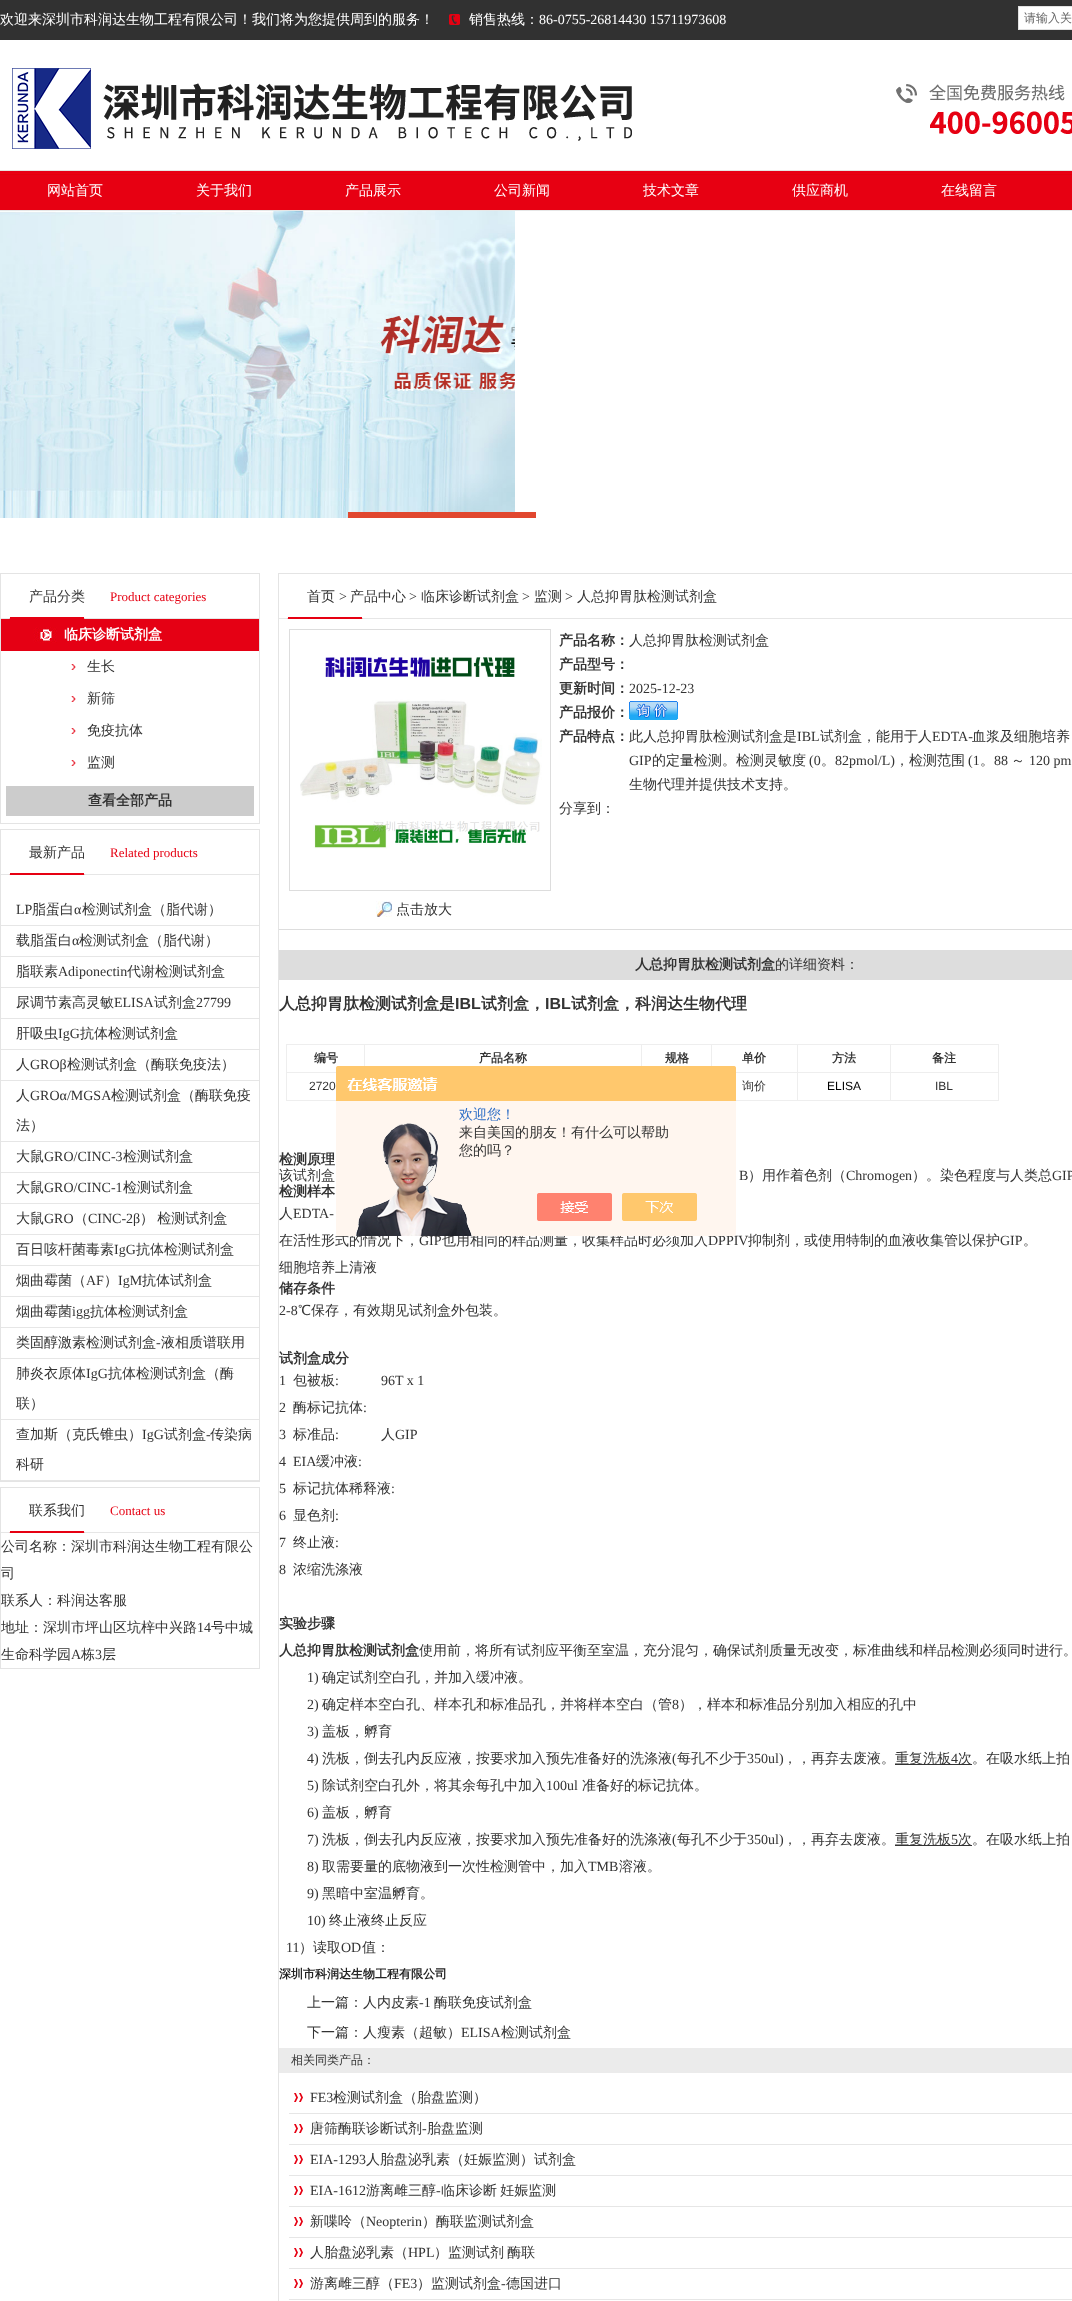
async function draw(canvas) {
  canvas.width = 1072
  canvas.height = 2301
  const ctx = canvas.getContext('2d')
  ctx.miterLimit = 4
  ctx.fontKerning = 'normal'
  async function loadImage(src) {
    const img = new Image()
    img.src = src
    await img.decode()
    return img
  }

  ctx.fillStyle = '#fff'
  ctx.fillRect(0, 0, 1072, 2301)
  ctx.fillStyle = '#313131'
  ctx.fillRect(0, 0, 1072, 40)
  ctx.font = '500 14px WenQuanYi Zen Hei'
  ctx.fillStyle = '#fff'
  ctx.fillText('欢迎来深圳市科润达生物工程有限公司！我们将为您提供周到的服务！', 0, 24)
  ctx.drawImage(await loadImage('image0.png'), 449, 14, 11, 11)
  ctx.fillText('销售热线：', 469, 24)
  ctx.font = '14px Liberation Serif'
  ctx.fillText('86-0755-26814430 15711973608', 539, 24)
  ctx.fillRect(1019, 7, 53, 22)
  ctx.fillStyle = '#e1e1e1'
  ctx.fillRect(1018, 6, 54, 1)
  ctx.fillRect(1018, 29, 54, 1)
  ctx.fillRect(1018, 6, 1, 24)
  ctx.font = '500 12px WenQuanYi Zen Hei'
  ctx.fillStyle = '#666'
  ctx.fillText('请输入关', 1024, 22)
  ctx.drawImage(await loadImage('image1.png'), 12, 68, 1060, 81)
  ctx.drawImage(await loadImage('image2.png'), 0, 170, 1072, 41)
  ctx.font = '500 14px WenQuanYi Zen Hei'
  ctx.fillStyle = '#fff'
  ctx.fillText('网站首页', 47, 195)
  ctx.fillText('关于我们', 196, 195)
  ctx.fillText('产品展示', 345, 195)
  ctx.fillText('公司新闻', 494, 195)
  ctx.fillText('技术文章', 643, 195)
  ctx.fillText('供应商机', 792, 195)
  ctx.fillText('在线留言', 941, 195)
  ctx.drawImage(await loadImage('image3.png'), 0, 211, 83, 307)
  ctx.drawImage(await loadImage('image4.png'), 83, 212, 108, 306)
  ctx.drawImage(await loadImage('image5.png'), 191, 211, 108, 307)
  ctx.drawImage(await loadImage('image6.png'), 299, 211, 108, 307)
  ctx.drawImage(await loadImage('image7.png'), 407, 211, 108, 301)
  ctx.fillStyle = '#e1472f'
  ctx.fillRect(348, 512, 188, 6)
  ctx.strokeStyle = '#e4e4e4'
  ctx.strokeRect(0.5, 573.5, 259, 250)
  ctx.drawImage(await loadImage('image8.png'), 1, 617, 258, 2)
  ctx.fillStyle = '#333'
  ctx.fillText('产品分类', 29, 601)
  ctx.font = '13px Liberation Serif'
  ctx.fillStyle = '#e60012'
  ctx.fillText('Product categories', 110, 601)
  ctx.drawImage(await loadImage('image9.png'), 1, 619, 258, 32)
  ctx.font = 'bold 14px WenQuanYi Zen Hei'
  ctx.fillStyle = '#fff'
  ctx.fillText('临床诊断试剂盒', 64, 639)
  ctx.drawImage(await loadImage('image10.png'), 71, 664, 5, 6)
  ctx.font = '500 14px WenQuanYi Zen Hei'
  ctx.fillStyle = '#333'
  ctx.fillText('生长', 87, 671)
  ctx.drawImage(await loadImage('image10.png'), 71, 696, 5, 6)
  ctx.fillText('新筛', 87, 703)
  ctx.drawImage(await loadImage('image10.png'), 71, 728, 5, 6)
  ctx.fillText('免疫抗体', 87, 735)
  ctx.drawImage(await loadImage('image10.png'), 71, 760, 5, 6)
  ctx.fillText('监测', 87, 767)
  ctx.fillStyle = '#ccc'
  ctx.fillRect(6, 786, 248, 30)
  ctx.font = 'bold 14px WenQuanYi Zen Hei'
  ctx.fillStyle = '#333'
  ctx.fillText('查看全部产品', 88, 805)
  ctx.strokeRect(0.5, 829.5, 259, 652)
  ctx.drawImage(await loadImage('image8.png'), 1, 873, 258, 2)
  ctx.font = '500 14px WenQuanYi Zen Hei'
  ctx.fillText('最新产品', 29, 857)
  ctx.font = '13px Liberation Serif'
  ctx.fillStyle = '#e60012'
  ctx.fillText('Related products', 110, 857)
  ctx.fillStyle = '#e6e6e6'
  ctx.fillRect(1, 925, 258, 1)
  ctx.font = '14px Liberation Serif'
  ctx.fillStyle = '#333'
  ctx.fillText('LP', 16, 914)
  ctx.font = '500 14px WenQuanYi Zen Hei'
  ctx.fillText('脂蛋白', 32, 914)
  ctx.font = '14px Liberation Serif'
  ctx.fillText('α', 74, 914)
  ctx.font = '500 14px WenQuanYi Zen Hei'
  ctx.fillText('检测试剂盒（脂代谢）', 82, 914)
  ctx.fillStyle = '#e6e6e6'
  ctx.fillRect(1, 956, 258, 1)
  ctx.fillStyle = '#333'
  ctx.fillText('载脂蛋白', 16, 945)
  ctx.font = '14px Liberation Serif'
  ctx.fillText('α', 72, 945)
  ctx.font = '500 14px WenQuanYi Zen Hei'
  ctx.fillText('检测试剂盒（脂代谢）', 79, 945)
  ctx.fillStyle = '#e6e6e6'
  ctx.fillRect(1, 987, 258, 1)
  ctx.fillStyle = '#333'
  ctx.fillText('脂联素', 16, 976)
  ctx.font = '14px Liberation Serif'
  ctx.fillText('Adiponectin', 58, 976)
  ctx.font = '500 14px WenQuanYi Zen Hei'
  ctx.fillText('代谢检测试剂盒', 127, 976)
  ctx.fillStyle = '#e6e6e6'
  ctx.fillRect(1, 1018, 258, 1)
  ctx.fillStyle = '#333'
  ctx.fillText('尿调节素高灵敏', 16, 1007)
  ctx.font = '14px Liberation Serif'
  ctx.fillText('ELISA', 114, 1007)
  ctx.font = '500 14px WenQuanYi Zen Hei'
  ctx.fillText('试剂盒', 154, 1007)
  ctx.font = '14px Liberation Serif'
  ctx.fillText('27799', 196, 1007)
  ctx.fillStyle = '#e6e6e6'
  ctx.fillRect(1, 1049, 258, 1)
  ctx.font = '500 14px WenQuanYi Zen Hei'
  ctx.fillStyle = '#333'
  ctx.fillText('肝吸虫', 16, 1038)
  ctx.font = '14px Liberation Serif'
  ctx.fillText('IgG', 58, 1038)
  ctx.font = '500 14px WenQuanYi Zen Hei'
  ctx.fillText('抗体检测试剂盒', 80, 1038)
  ctx.fillStyle = '#e6e6e6'
  ctx.fillRect(1, 1080, 258, 1)
  ctx.fillStyle = '#333'
  ctx.fillText('人', 16, 1069)
  ctx.font = '14px Liberation Serif'
  ctx.fillText('GROβ', 30, 1069)
  ctx.font = '500 14px WenQuanYi Zen Hei'
  ctx.fillText('检测试剂盒（酶联免疫法）', 67, 1069)
  ctx.fillStyle = '#e6e6e6'
  ctx.fillRect(1, 1141, 258, 1)
  ctx.fillStyle = '#333'
  ctx.fillText('人', 16, 1100)
  ctx.font = '14px Liberation Serif'
  ctx.fillText('GROα/MGSA', 30, 1100)
  ctx.font = '500 14px WenQuanYi Zen Hei'
  ctx.fillText('检测试剂盒（酶联免疫', 111, 1100)
  ctx.fillText('法）', 16, 1130)
  ctx.fillStyle = '#e6e6e6'
  ctx.fillRect(1, 1172, 258, 1)
  ctx.fillStyle = '#333'
  ctx.fillText('大鼠', 16, 1161)
  ctx.font = '14px Liberation Serif'
  ctx.fillText('GRO/CINC-3', 44, 1161)
  ctx.font = '500 14px WenQuanYi Zen Hei'
  ctx.fillText('检测试剂盒', 123, 1161)
  ctx.fillStyle = '#e6e6e6'
  ctx.fillRect(1, 1203, 258, 1)
  ctx.fillStyle = '#333'
  ctx.fillText('大鼠', 16, 1192)
  ctx.font = '14px Liberation Serif'
  ctx.fillText('GRO/CINC-1', 44, 1192)
  ctx.font = '500 14px WenQuanYi Zen Hei'
  ctx.fillText('检测试剂盒', 123, 1192)
  ctx.fillStyle = '#e6e6e6'
  ctx.fillRect(1, 1234, 258, 1)
  ctx.fillStyle = '#333'
  ctx.fillText('大鼠', 16, 1223)
  ctx.font = '14px Liberation Serif'
  ctx.fillText('GRO', 44, 1223)
  ctx.font = '500 14px WenQuanYi Zen Hei'
  ctx.fillText('（', 74, 1223)
  ctx.font = '14px Liberation Serif'
  ctx.fillText('CINC-2β', 88, 1223)
  ctx.wordSpacing = '-1px'
  ctx.font = '500 14px WenQuanYi Zen Hei'
  ctx.fillText('） 检测试剂盒', 140, 1223)
  ctx.fillStyle = '#e6e6e6'
  ctx.fillRect(1, 1265, 258, 1)
  ctx.wordSpacing = '0px'
  ctx.fillStyle = '#333'
  ctx.fillText('百日咳杆菌毒素', 16, 1254)
  ctx.font = '14px Liberation Serif'
  ctx.fillText('IgG', 114, 1254)
  ctx.font = '500 14px WenQuanYi Zen Hei'
  ctx.fillText('抗体检测试剂盒', 136, 1254)
  ctx.fillStyle = '#e6e6e6'
  ctx.fillRect(1, 1296, 258, 1)
  ctx.fillStyle = '#333'
  ctx.fillText('烟曲霉菌（', 16, 1285)
  ctx.font = '14px Liberation Serif'
  ctx.fillText('AF', 86, 1285)
  ctx.font = '500 14px WenQuanYi Zen Hei'
  ctx.fillText('）', 104, 1285)
  ctx.font = '14px Liberation Serif'
  ctx.fillText('IgM', 118, 1285)
  ctx.font = '500 14px WenQuanYi Zen Hei'
  ctx.fillText('抗体试剂盒', 142, 1285)
  ctx.fillStyle = '#e6e6e6'
  ctx.fillRect(1, 1327, 258, 1)
  ctx.fillStyle = '#333'
  ctx.fillText('烟曲霉菌', 16, 1316)
  ctx.font = '14px Liberation Serif'
  ctx.fillText('igg', 72, 1316)
  ctx.font = '500 14px WenQuanYi Zen Hei'
  ctx.fillText('抗体检测试剂盒', 90, 1316)
  ctx.fillStyle = '#e6e6e6'
  ctx.fillRect(1, 1358, 258, 1)
  ctx.fillStyle = '#333'
  ctx.fillText('类固醇激素检测试剂盒', 16, 1347)
  ctx.font = '14px Liberation Serif'
  ctx.fillText('-', 156, 1347)
  ctx.font = '500 14px WenQuanYi Zen Hei'
  ctx.fillText('液相质谱联用', 161, 1347)
  ctx.fillStyle = '#e6e6e6'
  ctx.fillRect(1, 1419, 258, 1)
  ctx.fillStyle = '#333'
  ctx.fillText('肺炎衣原体', 16, 1378)
  ctx.font = '14px Liberation Serif'
  ctx.fillText('IgG', 86, 1378)
  ctx.font = '500 14px WenQuanYi Zen Hei'
  ctx.fillText('抗体检测试剂盒（酶', 108, 1378)
  ctx.fillText('联）', 16, 1408)
  ctx.fillStyle = '#e6e6e6'
  ctx.fillRect(1, 1480, 258, 1)
  ctx.fillStyle = '#333'
  ctx.fillText('查加斯（克氏锥虫）', 16, 1439)
  ctx.font = '14px Liberation Serif'
  ctx.fillText('IgG', 142, 1439)
  ctx.font = '500 14px WenQuanYi Zen Hei'
  ctx.fillText('试剂盒', 164, 1439)
  ctx.font = '14px Liberation Serif'
  ctx.fillText('-', 206, 1439)
  ctx.font = '500 14px WenQuanYi Zen Hei'
  ctx.fillText('传染病', 210, 1439)
  ctx.fillText('科研', 16, 1469)
  ctx.strokeRect(0.5, 1487.5, 259, 181)
  ctx.drawImage(await loadImage('image8.png'), 1, 1531, 258, 2)
  ctx.fillText('联系我们', 29, 1515)
  ctx.font = '13px Liberation Serif'
  ctx.fillStyle = '#e60012'
  ctx.fillText('Contact us', 110, 1515)
  ctx.font = '500 14px WenQuanYi Zen Hei'
  ctx.fillStyle = '#333'
  ctx.fillText('公司名称：深圳市科润达生物工程有限公', 1, 1551)
  ctx.fillText('司', 1, 1578)
  ctx.fillText('联系人：科润达客服', 1, 1605)
  ctx.fillText('地址：深圳市坪山区坑梓中兴路', 1, 1632)
  ctx.font = '14px Liberation Serif'
  ctx.fillText('14', 197, 1632)
  ctx.font = '500 14px WenQuanYi Zen Hei'
  ctx.fillText('号中城', 211, 1632)
  ctx.fillText('生命科学园', 1, 1659)
  ctx.font = '14px Liberation Serif'
  ctx.fillText('A', 71, 1659)
  ctx.font = '500 14px WenQuanYi Zen Hei'
  ctx.fillText('栋', 81, 1659)
  ctx.font = '14px Liberation Serif'
  ctx.fillText('3', 95, 1659)
  ctx.font = '500 14px WenQuanYi Zen Hei'
  ctx.fillText('层', 102, 1659)
  ctx.strokeRect(278.5, 573.5, 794, 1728)
  ctx.drawImage(await loadImage('image11.png'), 279, 617, 793, 2)
  ctx.fillText('首页', 307, 601)
  ctx.font = '14px Liberation Serif'
  ctx.fillText('>', 339, 601)
  ctx.font = '500 14px WenQuanYi Zen Hei'
  ctx.fillText('产品中心', 350, 601)
  ctx.font = '14px Liberation Serif'
  ctx.fillText('>', 409, 601)
  ctx.font = '500 14px WenQuanYi Zen Hei'
  ctx.fillText('临床诊断试剂盒', 421, 601)
  ctx.font = '14px Liberation Serif'
  ctx.fillText('>', 522, 601)
  ctx.font = '500 14px WenQuanYi Zen Hei'
  ctx.fillText('监测', 534, 601)
  ctx.font = '14px Liberation Serif'
  ctx.fillText('>', 565, 601)
  ctx.font = '500 14px WenQuanYi Zen Hei'
  ctx.fillText('人总抑胃肽检测试剂盒', 577, 601)
  ctx.fillStyle = '#ddd'
  ctx.fillRect(279, 929, 793, 1)
  ctx.font = 'bold 14px WenQuanYi Zen Hei'
  ctx.fillStyle = '#333'
  ctx.fillText('产品名称：', 559, 645)
  ctx.font = '500 14px WenQuanYi Zen Hei'
  ctx.fillText('人总抑胃肽检测试剂盒', 629, 645)
  ctx.font = 'bold 14px WenQuanYi Zen Hei'
  ctx.fillText('产品型号：', 559, 669)
  ctx.fillText('更新时间：', 559, 693)
  ctx.font = '14px Liberation Serif'
  ctx.fillText('2025-12-23', 629, 693)
  ctx.font = 'bold 14px WenQuanYi Zen Hei'
  ctx.fillText('产品报价：', 559, 717)
  ctx.drawImage(await loadImage('image12.png'), 629, 701, 49, 19)
  ctx.fillText('产品特点：', 559, 741)
  ctx.font = '500 14px WenQuanYi Zen Hei'
  ctx.fillText('此人总抑胃肽检测试剂盒是', 629, 741)
  ctx.font = '14px Liberation Serif'
  ctx.fillText('IBL', 797, 741)
  ctx.font = '500 14px WenQuanYi Zen Hei'
  ctx.fillText('试剂盒，能用于人', 820, 741)
  ctx.font = '14px Liberation Serif'
  ctx.fillText('EDTA-', 932, 741)
  ctx.font = '500 14px WenQuanYi Zen Hei'
  ctx.fillText('血浆及细胞培养', 972, 741)
  ctx.font = '14px Liberation Serif'
  ctx.fillText('GIP', 629, 765)
  ctx.font = '500 14px WenQuanYi Zen Hei'
  ctx.fillText('的定量检测。检测灵敏度', 652, 765)
  ctx.font = '14px Liberation Serif'
  ctx.fillText('(0', 809, 765)
  ctx.fillText('82pmol/L)', 835, 765)
  ctx.font = '500 14px WenQuanYi Zen Hei'
  ctx.fillText('，检测范围', 895, 765)
  ctx.font = '14px Liberation Serif'
  ctx.fillText('(1', 968, 765)
  ctx.fillText('88', 994, 765)
  ctx.font = '500 14px WenQuanYi Zen Hei'
  ctx.fillText('～', 1011, 765)
  ctx.font = '14px Liberation Serif'
  ctx.fillText('120 pm', 1029, 765)
  ctx.font = '500 14px WenQuanYi Zen Hei'
  ctx.fillText('。', 821, 765)
  ctx.fillText('。', 980, 765)
  ctx.fillText('生物代理并提供技术支持。', 629, 789)
  ctx.fillText('分享到：', 559, 813)
  ctx.strokeStyle = '#ddd'
  ctx.strokeRect(289.5, 629.5, 261, 261)
  ctx.drawImage(await loadImage('image13.png'), 300, 657, 242, 192)
  ctx.drawImage(await loadImage('image14.png'), 376, 901, 16, 16)
  ctx.fillText('点击放大', 396, 914)
  ctx.fillStyle = '#ddd'
  ctx.fillRect(279, 950, 793, 30)
  ctx.font = 'bold 14px WenQuanYi Zen Hei'
  ctx.fillStyle = '#333'
  ctx.fillText('人总抑胃肽检测试剂盒', 635, 969)
  ctx.font = '500 14px WenQuanYi Zen Hei'
  ctx.fillText('的详细资料：', 775, 969)
  ctx.font = 'bold 16px WenQuanYi Zen Hei'
  ctx.fillText('人总抑胃肽检测试剂盒是', 279, 1009)
  ctx.font = 'bold 16px Liberation Sans'
  ctx.fillText('IBL', 455, 1009)
  ctx.font = 'bold 16px WenQuanYi Zen Hei'
  ctx.fillText('试剂盒，', 481, 1009)
  ctx.font = 'bold 16px Liberation Sans'
  ctx.fillText('IBL', 545, 1009)
  ctx.font = 'bold 16px WenQuanYi Zen Hei'
  ctx.fillText('试剂盒，科润达生物代理', 571, 1009)
  ctx.fillStyle = '#eee'
  ctx.fillRect(890, 1044, 109, 1)
  ctx.fillRect(890, 1072, 109, 1)
  ctx.fillRect(998, 1072, 1, 29)
  ctx.fillRect(890, 1100, 109, 1)
  ctx.fillRect(890, 1072, 1, 29)
  ctx.fillRect(797, 1072, 94, 1)
  ctx.fillRect(890, 1044, 1, 29)
  ctx.fillRect(797, 1044, 94, 1)
  ctx.fillRect(797, 1100, 94, 1)
  ctx.fillRect(797, 1072, 1, 29)
  ctx.fillRect(736, 1072, 62, 1)
  ctx.fillRect(797, 1044, 1, 29)
  ctx.fillRect(711, 1044, 87, 1)
  ctx.fillRect(711, 1044, 1, 29)
  ctx.fillRect(641, 1044, 71, 1)
  ctx.fillRect(641, 1044, 1, 29)
  ctx.fillRect(364, 1044, 278, 1)
  ctx.fillRect(364, 1044, 1, 29)
  ctx.fillRect(286, 1044, 79, 1)
  ctx.fillRect(286, 1072, 50, 1)
  ctx.fillRect(286, 1100, 50, 1)
  ctx.fillRect(286, 1072, 1, 29)
  ctx.fillRect(286, 1044, 1, 29)
  ctx.font = 'bold 12px WenQuanYi Zen Hei'
  ctx.fillStyle = '#333'
  ctx.fillText('编号', 314, 1062)
  ctx.fillText('产品名称', 479, 1062)
  ctx.fillText('规格', 665, 1062)
  ctx.fillText('单价', 742, 1062)
  ctx.fillText('方法', 832, 1062)
  ctx.fillStyle = '#eee'
  ctx.fillRect(998, 1044, 1, 29)
  ctx.fillStyle = '#333'
  ctx.fillText('备注', 932, 1062)
  ctx.font = '12px Liberation Sans'
  ctx.fillText('2720', 309, 1090)
  ctx.fillStyle = '#eee'
  ctx.fillRect(736, 1100, 62, 1)
  ctx.font = '500 12px WenQuanYi Zen Hei'
  ctx.fillStyle = '#333'
  ctx.fillText('询价', 742, 1090)
  ctx.font = '12px Liberation Sans'
  ctx.fillStyle = '#000'
  ctx.fillText('ELISA', 827, 1090)
  ctx.fillStyle = '#333'
  ctx.fillText('IBL', 935, 1090)
  ctx.font = 'bold 14px WenQuanYi Zen Hei'
  ctx.fillText('检测原理', 279, 1164)
  ctx.font = '500 14px WenQuanYi Zen Hei'
  ctx.fillText('该试剂盒', 279, 1180)
  ctx.font = '14px Liberation Serif'
  ctx.fillText('B', 739, 1180)
  ctx.font = '500 14px WenQuanYi Zen Hei'
  ctx.fillText('）用作着色剂（', 748, 1180)
  ctx.font = '14px Liberation Serif'
  ctx.fillText('Chromogen', 846, 1180)
  ctx.font = '500 14px WenQuanYi Zen Hei'
  ctx.fillText('）。染色程度与人类总', 912, 1180)
  ctx.font = '14px Liberation Serif'
  ctx.fillText('GIP', 1052, 1180)
  ctx.font = 'bold 14px WenQuanYi Zen Hei'
  ctx.fillText('检测样本', 279, 1196)
  ctx.font = '500 14px WenQuanYi Zen Hei'
  ctx.fillText('人', 279, 1218)
  ctx.font = '14px Liberation Serif'
  ctx.fillText('EDTA-', 293, 1218)
  ctx.font = '500 14px WenQuanYi Zen Hei'
  ctx.fillText('在活性形式的情况下，', 279, 1245)
  ctx.font = '14px Liberation Serif'
  ctx.fillText('GIP', 419, 1245)
  ctx.font = '500 14px WenQuanYi Zen Hei'
  ctx.fillText('也用相同的样品测量，收集样品时必须加入', 442, 1245)
  ctx.font = '14px Liberation Serif'
  ctx.fillText('DPPIV', 708, 1245)
  ctx.font = '500 14px WenQuanYi Zen Hei'
  ctx.fillText('抑制剂，或使用特制的血液收集管以保护', 748, 1245)
  ctx.font = '14px Liberation Serif'
  ctx.fillText('GIP', 1000, 1245)
  ctx.font = '500 14px WenQuanYi Zen Hei'
  ctx.fillText('。', 1023, 1245)
  ctx.fillText('细胞培养上清液', 279, 1272)
  ctx.font = 'bold 14px WenQuanYi Zen Hei'
  ctx.fillText('储存条件', 279, 1293)
  ctx.font = '14px Liberation Serif'
  ctx.fillText('2-8', 279, 1315)
  ctx.font = '500 14px WenQuanYi Zen Hei'
  ctx.fillText('℃保存，有效期见试剂盒外包装。', 298, 1315)
  ctx.font = 'bold 14px WenQuanYi Zen Hei'
  ctx.fillText('试剂盒成分', 279, 1363)
  ctx.font = '14px Liberation Serif'
  ctx.fillText('1', 279, 1385)
  ctx.font = '500 14px WenQuanYi Zen Hei'
  ctx.fillText('包被板', 293, 1385)
  ctx.font = '14px Liberation Serif'
  ctx.fillText(':', 335, 1385)
  ctx.fillText('96T x 1', 381, 1385)
  ctx.fillText('2', 279, 1412)
  ctx.font = '500 14px WenQuanYi Zen Hei'
  ctx.fillText('酶标记抗体', 293, 1412)
  ctx.font = '14px Liberation Serif'
  ctx.fillText(':', 363, 1412)
  ctx.fillText('3', 279, 1439)
  ctx.font = '500 14px WenQuanYi Zen Hei'
  ctx.fillText('标准品', 293, 1439)
  ctx.font = '14px Liberation Serif'
  ctx.fillText(':', 335, 1439)
  ctx.font = '500 14px WenQuanYi Zen Hei'
  ctx.fillText('人', 381, 1439)
  ctx.font = '14px Liberation Serif'
  ctx.fillText('GIP', 395, 1439)
  ctx.fillText('4  EIA', 279, 1466)
  ctx.font = '500 14px WenQuanYi Zen Hei'
  ctx.fillText('缓冲液', 316, 1466)
  ctx.font = '14px Liberation Serif'
  ctx.fillText(':', 358, 1466)
  ctx.fillText('5', 279, 1493)
  ctx.font = '500 14px WenQuanYi Zen Hei'
  ctx.fillText('标记抗体稀释液', 293, 1493)
  ctx.font = '14px Liberation Serif'
  ctx.fillText(':', 391, 1493)
  ctx.fillText('6', 279, 1520)
  ctx.font = '500 14px WenQuanYi Zen Hei'
  ctx.fillText('显色剂', 293, 1520)
  ctx.font = '14px Liberation Serif'
  ctx.fillText(':', 335, 1520)
  ctx.fillText('7', 279, 1547)
  ctx.font = '500 14px WenQuanYi Zen Hei'
  ctx.fillText('终止液', 293, 1547)
  ctx.font = '14px Liberation Serif'
  ctx.fillText(':', 335, 1547)
  ctx.fillText('8', 279, 1574)
  ctx.font = '500 14px WenQuanYi Zen Hei'
  ctx.fillText('浓缩洗涤液', 293, 1574)
  ctx.font = 'bold 14px WenQuanYi Zen Hei'
  ctx.fillText('实验步骤', 279, 1628)
  ctx.fillText('人总抑胃肽检测试剂盒', 279, 1655)
  ctx.font = '500 14px WenQuanYi Zen Hei'
  ctx.fillText('使用前，将所有试剂应平衡至室温，充分混匀，确保试剂质量无改变，标准曲线和样品检测必须同时进行。', 419, 1655)
  ctx.font = '14px Liberation Serif'
  ctx.fillText('1)', 307, 1682)
  ctx.font = '500 14px WenQuanYi Zen Hei'
  ctx.fillText('确定试剂空白孔，并加入缓冲液。', 322, 1682)
  ctx.font = '14px Liberation Serif'
  ctx.fillText('2)', 307, 1709)
  ctx.font = '500 14px WenQuanYi Zen Hei'
  ctx.fillText('确定样本空白孔、样本孔和标准品孔，并将样本空白（管', 322, 1709)
  ctx.font = '14px Liberation Serif'
  ctx.fillText('8', 672, 1709)
  ctx.font = '500 14px WenQuanYi Zen Hei'
  ctx.fillText('），样本和标准品分别加入相应的孔中', 679, 1709)
  ctx.font = '14px Liberation Serif'
  ctx.fillText('3)', 307, 1736)
  ctx.font = '500 14px WenQuanYi Zen Hei'
  ctx.fillText('盖板，孵育', 322, 1736)
  ctx.font = '14px Liberation Serif'
  ctx.fillText('4)', 307, 1763)
  ctx.font = '500 14px WenQuanYi Zen Hei'
  ctx.fillText('洗板，倒去孔内反应液，按要求加入预先准备好的洗涤液', 322, 1763)
  ctx.font = '14px Liberation Serif'
  ctx.fillText('(', 672, 1763)
  ctx.font = '500 14px WenQuanYi Zen Hei'
  ctx.fillText('每孔不少于', 677, 1763)
  ctx.font = '14px Liberation Serif'
  ctx.fillText('350ul)', 747, 1763)
  ctx.font = '500 14px WenQuanYi Zen Hei'
  ctx.fillText('，，再弃去废液。', 783, 1763)
  ctx.fillRect(895, 1764, 77, 1)
  ctx.fillText('重复洗板', 895, 1763)
  ctx.font = '14px Liberation Serif'
  ctx.fillText('4', 951, 1763)
  ctx.font = '500 14px WenQuanYi Zen Hei'
  ctx.fillText('次。在吸水纸上拍', 958, 1763)
  ctx.font = '14px Liberation Serif'
  ctx.fillText('5)', 307, 1790)
  ctx.font = '500 14px WenQuanYi Zen Hei'
  ctx.fillText('除试剂空白孔外，将其余每孔中加入', 322, 1790)
  ctx.font = '14px Liberation Serif'
  ctx.fillText('100ul', 546, 1790)
  ctx.font = '500 14px WenQuanYi Zen Hei'
  ctx.fillText('准备好的标记抗体。', 582, 1790)
  ctx.font = '14px Liberation Serif'
  ctx.fillText('6)', 307, 1817)
  ctx.font = '500 14px WenQuanYi Zen Hei'
  ctx.fillText('盖板，孵育', 322, 1817)
  ctx.font = '14px Liberation Serif'
  ctx.fillText('7)', 307, 1844)
  ctx.font = '500 14px WenQuanYi Zen Hei'
  ctx.fillText('洗板，倒去孔内反应液，按要求加入预先准备好的洗涤液', 322, 1844)
  ctx.font = '14px Liberation Serif'
  ctx.fillText('(', 672, 1844)
  ctx.font = '500 14px WenQuanYi Zen Hei'
  ctx.fillText('每孔不少于', 677, 1844)
  ctx.font = '14px Liberation Serif'
  ctx.fillText('350ul)', 747, 1844)
  ctx.font = '500 14px WenQuanYi Zen Hei'
  ctx.fillText('，，再弃去废液。', 783, 1844)
  ctx.fillRect(895, 1845, 77, 1)
  ctx.fillText('重复洗板', 895, 1844)
  ctx.font = '14px Liberation Serif'
  ctx.fillText('5', 951, 1844)
  ctx.font = '500 14px WenQuanYi Zen Hei'
  ctx.fillText('次。在吸水纸上拍', 958, 1844)
  ctx.font = '14px Liberation Serif'
  ctx.fillText('8)', 307, 1871)
  ctx.font = '500 14px WenQuanYi Zen Hei'
  ctx.fillText('取需要量的底物液到一次性检测管中，加入', 322, 1871)
  ctx.font = '14px Liberation Serif'
  ctx.fillText('TMB', 588, 1871)
  ctx.font = '500 14px WenQuanYi Zen Hei'
  ctx.fillText('溶液。', 619, 1871)
  ctx.font = '14px Liberation Serif'
  ctx.fillText('9)', 307, 1898)
  ctx.font = '500 14px WenQuanYi Zen Hei'
  ctx.fillText('黑暗中室温孵育。', 322, 1898)
  ctx.font = '14px Liberation Serif'
  ctx.fillText('10)', 307, 1925)
  ctx.font = '500 14px WenQuanYi Zen Hei'
  ctx.fillText('终止液终止反应', 329, 1925)
  ctx.font = '14px Liberation Serif'
  ctx.fillText('11', 286, 1952)
  ctx.font = '500 14px WenQuanYi Zen Hei'
  ctx.fillText('）读取', 299, 1952)
  ctx.font = '14px Liberation Serif'
  ctx.fillText('OD', 341, 1952)
  ctx.font = '500 14px WenQuanYi Zen Hei'
  ctx.fillText('值：', 362, 1952)
  ctx.font = 'bold 12px WenQuanYi Zen Hei'
  ctx.fillStyle = '#222'
  ctx.fillText('深圳市科润达生物工程有限公司', 279, 1978)
  ctx.font = '500 14px WenQuanYi Zen Hei'
  ctx.fillStyle = '#333'
  ctx.fillText('上一篇：人内皮素', 307, 2007)
  ctx.font = '14px Liberation Serif'
  ctx.fillText('-1', 419, 2007)
  ctx.font = '500 14px WenQuanYi Zen Hei'
  ctx.fillText('酶联免疫试剂盒', 434, 2007)
  ctx.fillText('下一篇：人瘦素（超敏）', 307, 2037)
  ctx.font = '14px Liberation Serif'
  ctx.fillText('ELISA', 461, 2037)
  ctx.font = '500 14px WenQuanYi Zen Hei'
  ctx.fillText('检测试剂盒', 501, 2037)
  ctx.fillStyle = '#ebebeb'
  ctx.fillRect(279, 2048, 793, 25)
  ctx.font = '500 12px WenQuanYi Zen Hei'
  ctx.fillStyle = '#333'
  ctx.fillText('相关同类产品：', 291, 2064)
  ctx.drawImage(await loadImage('image15.png'), 294, 2093, 9, 9)
  ctx.fillStyle = '#e6e6e6'
  ctx.fillRect(289, 2113, 783, 1)
  ctx.font = '14px Liberation Serif'
  ctx.fillStyle = '#333'
  ctx.fillText('FE3', 310, 2102)
  ctx.font = '500 14px WenQuanYi Zen Hei'
  ctx.fillText('检测试剂盒（胎盘监测）', 333, 2102)
  ctx.drawImage(await loadImage('image15.png'), 294, 2124, 9, 9)
  ctx.fillStyle = '#e6e6e6'
  ctx.fillRect(289, 2144, 783, 1)
  ctx.fillStyle = '#333'
  ctx.fillText('唐筛酶联诊断试剂', 310, 2133)
  ctx.font = '14px Liberation Serif'
  ctx.fillText('-', 422, 2133)
  ctx.font = '500 14px WenQuanYi Zen Hei'
  ctx.fillText('胎盘监测', 427, 2133)
  ctx.drawImage(await loadImage('image15.png'), 294, 2155, 9, 9)
  ctx.fillStyle = '#e6e6e6'
  ctx.fillRect(289, 2175, 783, 1)
  ctx.font = '14px Liberation Serif'
  ctx.fillStyle = '#333'
  ctx.fillText('EIA-1293', 310, 2164)
  ctx.font = '500 14px WenQuanYi Zen Hei'
  ctx.fillText('人胎盘泌乳素（妊娠监测）试剂盒', 366, 2164)
  ctx.drawImage(await loadImage('image15.png'), 294, 2186, 9, 9)
  ctx.fillStyle = '#e6e6e6'
  ctx.fillRect(289, 2206, 783, 1)
  ctx.font = '14px Liberation Serif'
  ctx.fillStyle = '#333'
  ctx.fillText('EIA-1612', 310, 2195)
  ctx.font = '500 14px WenQuanYi Zen Hei'
  ctx.fillText('游离雌三醇', 366, 2195)
  ctx.font = '14px Liberation Serif'
  ctx.fillText('-', 436, 2195)
  ctx.wordSpacing = '-1px'
  ctx.font = '500 14px WenQuanYi Zen Hei'
  ctx.fillText('临床诊断 妊娠监测', 441, 2195)
  ctx.drawImage(await loadImage('image15.png'), 294, 2217, 9, 9)
  ctx.fillStyle = '#e6e6e6'
  ctx.fillRect(289, 2237, 783, 1)
  ctx.wordSpacing = '0px'
  ctx.fillStyle = '#333'
  ctx.fillText('新喋呤（', 310, 2226)
  ctx.font = '14px Liberation Serif'
  ctx.fillText('Neopterin', 366, 2226)
  ctx.font = '500 14px WenQuanYi Zen Hei'
  ctx.fillText('）酶联监测试剂盒', 422, 2226)
  ctx.drawImage(await loadImage('image15.png'), 294, 2248, 9, 9)
  ctx.fillStyle = '#e6e6e6'
  ctx.fillRect(289, 2268, 783, 1)
  ctx.fillStyle = '#333'
  ctx.fillText('人胎盘泌乳素（', 310, 2257)
  ctx.font = '14px Liberation Serif'
  ctx.fillText('HPL', 408, 2257)
  ctx.wordSpacing = '-1px'
  ctx.font = '500 14px WenQuanYi Zen Hei'
  ctx.fillText('）监测试剂 酶联', 434, 2257)
  ctx.drawImage(await loadImage('image15.png'), 294, 2279, 9, 9)
  ctx.fillStyle = '#e6e6e6'
  ctx.fillRect(289, 2299, 783, 1)
  ctx.wordSpacing = '0px'
  ctx.fillStyle = '#333'
  ctx.fillText('游离雌三醇（', 310, 2288)
  ctx.font = '14px Liberation Serif'
  ctx.fillText('FE3', 394, 2288)
  ctx.font = '500 14px WenQuanYi Zen Hei'
  ctx.fillText('）监测试剂盒', 417, 2288)
  ctx.font = '14px Liberation Serif'
  ctx.fillText('-', 501, 2288)
  ctx.font = '500 14px WenQuanYi Zen Hei'
  ctx.fillText('德国进口', 506, 2288)
  ctx.drawImage(await loadImage('image16.png'), 336, 1066, 400, 170)
  ctx.fillStyle = '#2e6ec6'
  ctx.fillText('欢迎您！', 459, 1119)
  ctx.fillStyle = '#333'
  ctx.fillText('来自美国的朋友！有什么可以帮助', 459, 1137)
  ctx.fillText('您的吗？', 459, 1155)
}

draw(document.querySelector('canvas'))
